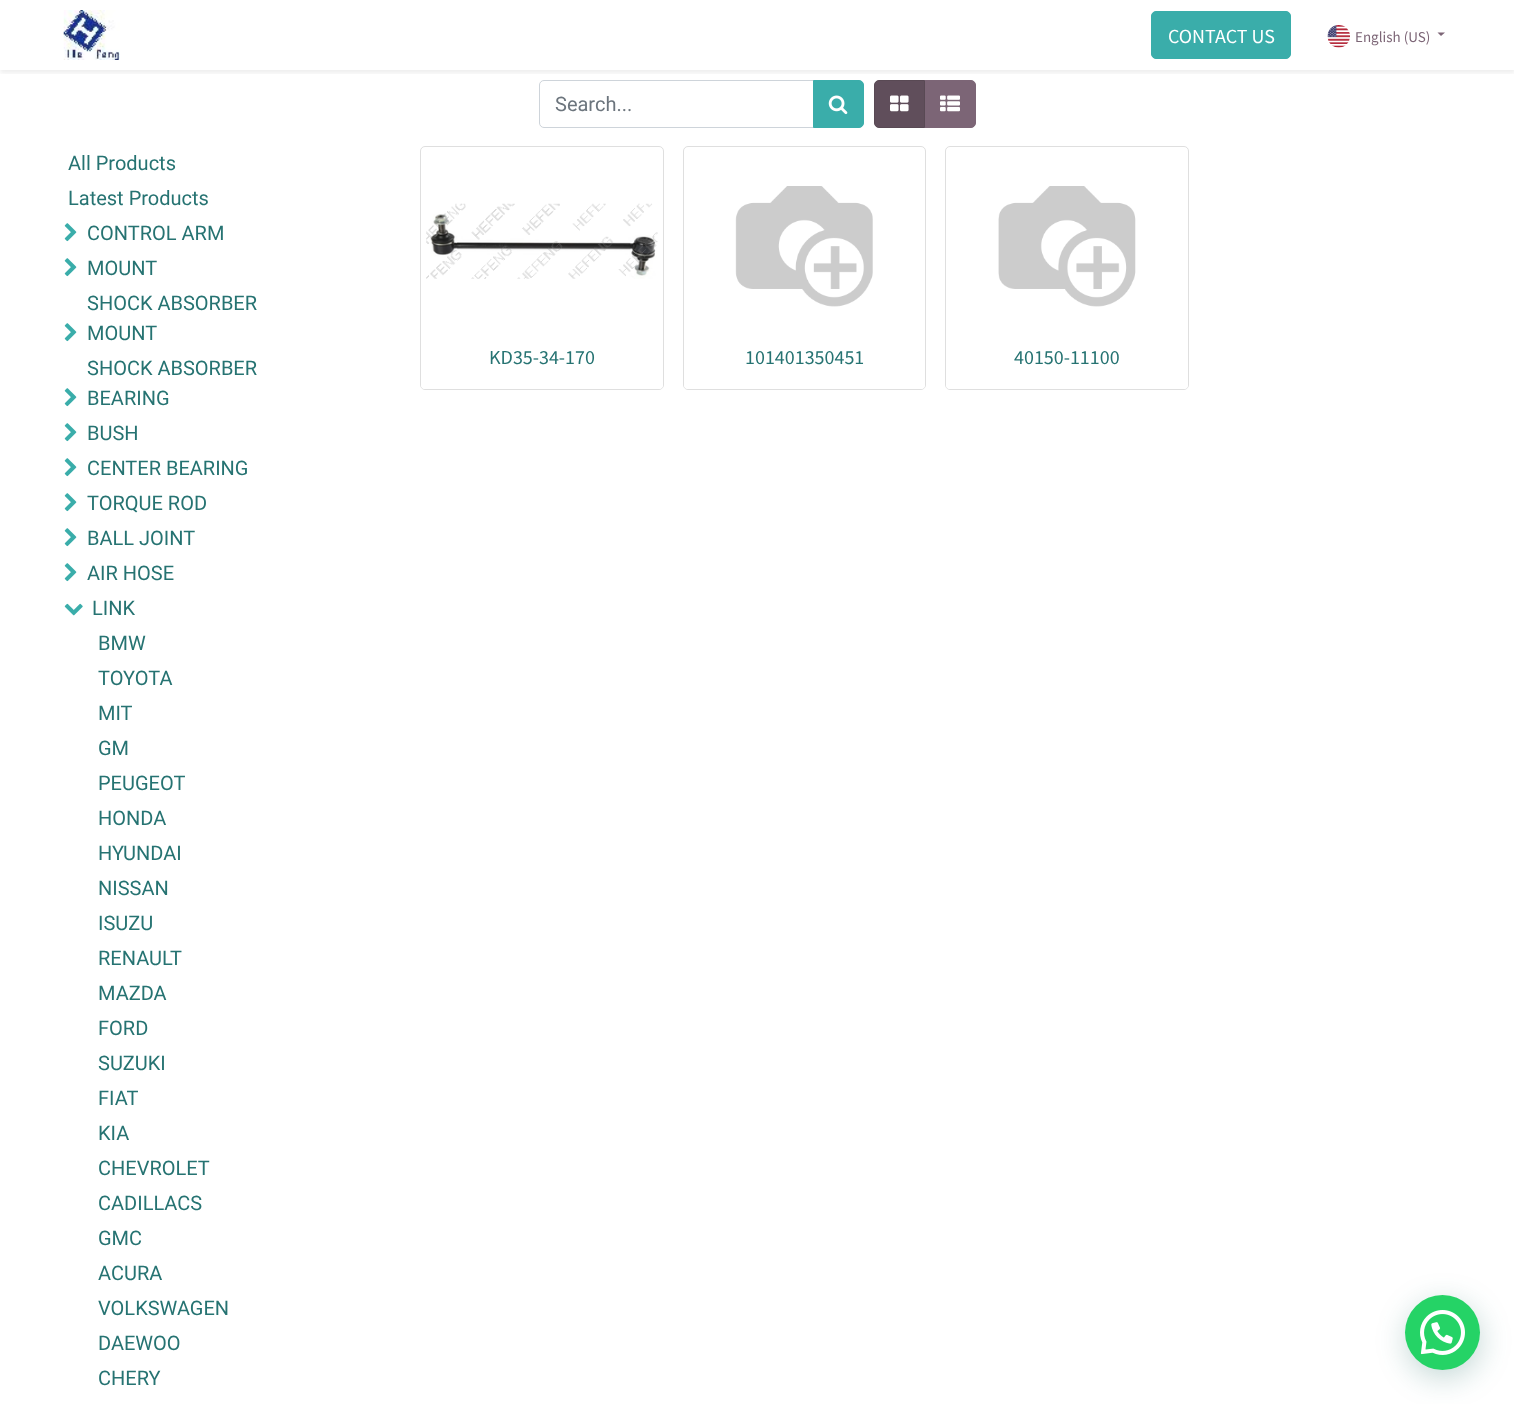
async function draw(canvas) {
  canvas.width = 1514
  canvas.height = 1404
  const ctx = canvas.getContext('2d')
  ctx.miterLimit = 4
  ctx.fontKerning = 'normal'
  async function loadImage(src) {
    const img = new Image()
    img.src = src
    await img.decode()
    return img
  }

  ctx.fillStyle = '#fff'
  ctx.fillRect(0, 0, 1514, 1404)
  ctx.beginPath()
  ctx.roundRect(539.5, 80.5, 274, 47, [4.5, 0, 0, 4.5])
  ctx.strokeStyle = '#ced4da'
  ctx.stroke()
  ctx.fillStyle = '#3aadaa'
  ctx.beginPath()
  ctx.roundRect(813.5, 80.5, 50, 47, [0, 4.5, 4.5, 0])
  ctx.fill()
  ctx.strokeStyle = '#3aadaa'
  ctx.stroke()
  ctx.fillStyle = '#7c6576'
  ctx.beginPath()
  ctx.roundRect(924.5, 80.5, 51, 47, [0, 4.5, 4.5, 0])
  ctx.fill()
  ctx.strokeStyle = '#7c6576'
  ctx.stroke()
  ctx.fillStyle = '#604e5b'
  ctx.beginPath()
  ctx.roundRect(874.5, 80.5, 50, 47, [4.5, 0, 0, 4.5])
  ctx.fill()
  ctx.strokeStyle = '#594954'
  ctx.stroke()
  ctx.save()
  ctx.beginPath()
  ctx.rect(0, 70, 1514, 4)
  ctx.clip()
  ctx.fillStyle = '#00000012'
  ctx.filter = 'blur(2.5px)'
  ctx.beginPath()
  ctx.rect(0, 3, 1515, 70)
  ctx.fill()
  ctx.filter = 'none'
  ctx.restore()
  ctx.drawImage(await loadImage('image0.png'), 63, 10, 57, 50)
  ctx.fillStyle = '#3aadaa'
  ctx.beginPath()
  ctx.roundRect(1151.5, 11.5, 139, 47, 4.5)
  ctx.fill()
  ctx.strokeStyle = '#3aadaa'
  ctx.stroke()
  ctx.font = '20px Source Sans Pro'
  ctx.fillStyle = '#fff'
  ctx.fillText('CONTACT US', 1168, 43)
  ctx.drawImage(await loadImage('image1.png'), 1327, 25, 23, 23)
  ctx.font = '15px Source Sans Pro'
  ctx.fillStyle = '#7c6576'
  ctx.fillText('English (US)', 1355, 42)
  ctx.beginPath()
  ctx.moveTo(1437.5, 32.5)
  ctx.lineTo(1445, 32.5)
  ctx.lineTo(1441, 36)
  ctx.closePath()
  ctx.fill()
  ctx.font = '20px Roboto'
  ctx.fillStyle = '#6c757d'
  ctx.fillText('Search...', 555, 111)
  ctx.drawImage(await loadImage('image2.png'), 828, 95, 20, 20)
  ctx.drawImage(await loadImage('image3.png'), 890, 95, 19, 17)
  ctx.drawImage(await loadImage('image4.png'), 940, 95, 20, 17)
  ctx.fillStyle = '#267372'
  ctx.fillText('All Products', 68, 170)
  ctx.fillText('Latest Products', 68, 205)
  ctx.drawImage(await loadImage('image5.png'), 64, 223, 13, 19)
  ctx.fillText('CONTROL ARM', 87, 240)
  ctx.drawImage(await loadImage('image5.png'), 64, 258, 13, 19)
  ctx.fillText('MOUNT', 87, 275)
  ctx.drawImage(await loadImage('image5.png'), 64, 323, 13, 19)
  ctx.fillText('SHOCK ABSORBER', 87, 310)
  ctx.fillText('MOUNT', 87, 340)
  ctx.drawImage(await loadImage('image5.png'), 64, 388, 13, 19)
  ctx.fillText('SHOCK ABSORBER', 87, 375)
  ctx.fillText('BEARING', 87, 405)
  ctx.drawImage(await loadImage('image5.png'), 64, 423, 13, 19)
  ctx.fillText('BUSH', 87, 440)
  ctx.drawImage(await loadImage('image5.png'), 64, 458, 13, 19)
  ctx.fillText('CENTER BEARING', 87, 475)
  ctx.drawImage(await loadImage('image5.png'), 64, 493, 13, 19)
  ctx.fillText('TORQUE ROD', 87, 510)
  ctx.drawImage(await loadImage('image5.png'), 64, 528, 13, 19)
  ctx.fillText('BALL JOINT', 87, 545)
  ctx.drawImage(await loadImage('image5.png'), 64, 563, 13, 19)
  ctx.fillText('AIR HOSE', 87, 580)
  ctx.drawImage(await loadImage('image6.png'), 64, 603, 19, 13)
  ctx.fillText('LINK', 92, 615)
  ctx.fillText('BMW', 98, 650)
  ctx.fillText('TOYOTA', 98, 685)
  ctx.fillText('MIT', 98, 720)
  ctx.fillText('GM', 98, 755)
  ctx.fillText('PEUGEOT', 98, 790)
  ctx.fillText('HONDA', 98, 825)
  ctx.fillText('HYUNDAI', 98, 860)
  ctx.fillText('NISSAN', 98, 895)
  ctx.fillText('ISUZU', 98, 930)
  ctx.fillText('RENAULT', 98, 965)
  ctx.fillText('MAZDA', 98, 1000)
  ctx.fillText('FORD', 98, 1035)
  ctx.fillText('SUZUKI', 98, 1070)
  ctx.fillText('FIAT', 98, 1105)
  ctx.fillText('KIA', 98, 1140)
  ctx.fillText('CHEVROLET', 98, 1175)
  ctx.fillText('CADILLACS', 98, 1210)
  ctx.fillText('GMC', 98, 1245)
  ctx.fillText('ACURA', 98, 1280)
  ctx.fillText('VOLKSWAGEN', 98, 1315)
  ctx.fillText('DAEWOO', 98, 1350)
  ctx.fillText('CHERY', 98, 1385)
  ctx.beginPath()
  ctx.roundRect(420.5, 146.5, 243, 243, 4.5)
  ctx.strokeStyle = '#dfdfdf'
  ctx.stroke()
  ctx.drawImage(await loadImage('image7.png'), 426, 203, 232, 76)
  ctx.fillStyle = '#ffffffe6'
  ctx.beginPath()
  ctx.roundRect(421, 335, 242, 54, [0, 0, 4, 4])
  ctx.fill()
  ctx.font = '20px Source Sans Pro'
  ctx.fillStyle = '#267372'
  ctx.fillText('KD35-34-170', 489, 364)
  ctx.beginPath()
  ctx.roundRect(683.5, 146.5, 242, 243, 4.5)
  ctx.stroke()
  ctx.drawImage(await loadImage('image8.png'), 735, 186, 138, 121)
  ctx.fillStyle = '#ffffffe6'
  ctx.beginPath()
  ctx.roundRect(684, 335, 241, 54, [0, 0, 4, 4])
  ctx.fill()
  ctx.fillStyle = '#267372'
  ctx.fillText('101401350451', 745, 364)
  ctx.beginPath()
  ctx.roundRect(945.5, 146.5, 243, 243, 4.5)
  ctx.stroke()
  ctx.drawImage(await loadImage('image9.png'), 998, 186, 138, 121)
  ctx.fillStyle = '#ffffffe6'
  ctx.beginPath()
  ctx.roundRect(946, 335, 242, 54, [0, 0, 4, 4])
  ctx.fill()
  ctx.fillStyle = '#267372'
  ctx.fillText('40150-11100', 1014, 364)
  ctx.fillStyle = '#075e543d'
  ctx.filter = 'blur(15px)'
  ctx.beginPath()
  ctx.roundRect(1406, 1303, 75, 75, 37.5)
  ctx.fill()
  ctx.filter = 'none'
  ctx.fillStyle = '#25d366'
  ctx.beginPath()
  ctx.arc(1442.5, 1332.5, 37.5, 0, 2 * Math.PI)
  ctx.fill()
  ctx.drawImage(await loadImage('image10.png'), 1420, 1310, 45, 45)
}

draw(document.querySelector('canvas'))
